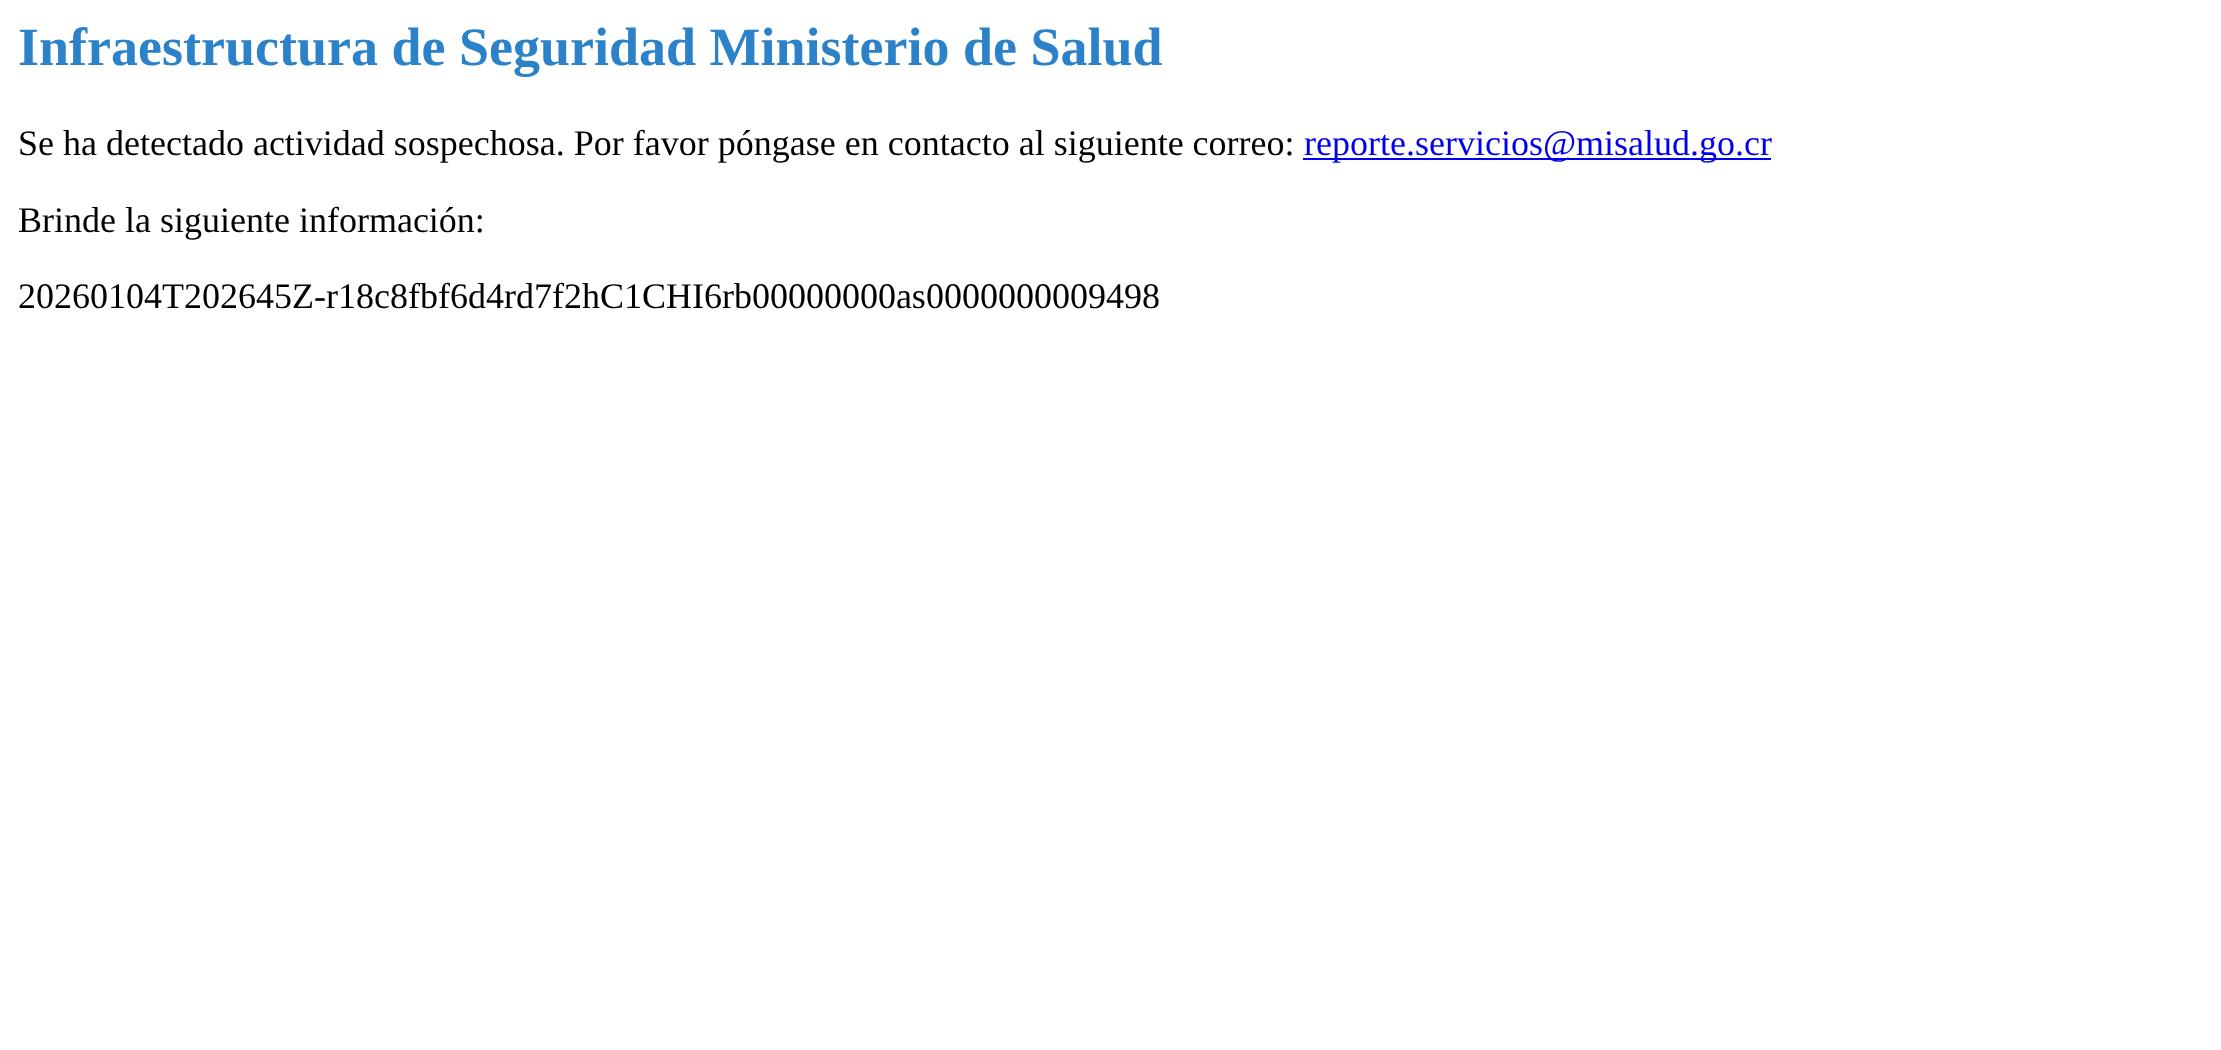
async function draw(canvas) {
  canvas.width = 2221
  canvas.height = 1050
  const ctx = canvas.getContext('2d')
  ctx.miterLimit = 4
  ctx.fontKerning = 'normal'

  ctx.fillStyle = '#fff'
  ctx.fillRect(0, 0, 2221, 1050)
  ctx.font = 'bold 54px Liberation Serif'
  ctx.fillStyle = '#2c82c9'
  ctx.fillText('Infraestructura de Seguridad Ministerio de Salud', 18, 65)
  ctx.font = '36px Liberation Serif'
  ctx.fillStyle = '#000'
  ctx.fillText('Se ha detectado actividad sospechosa. Por favor póngase en contacto al siguiente correo:', 18, 155)
  ctx.fillStyle = '#00e'
  ctx.fillRect(1303, 158, 468, 2)
  ctx.fillText('reporte.servicios@misalud.go.cr', 1304, 155)
  ctx.fillStyle = '#000'
  ctx.fillText('Brinde la siguiente información:', 18, 232)
  ctx.fillText('20260104T202645Z-r18c8fbf6d4rd7f2hC1CHI6rb00000000as0000000009498', 18, 308)
}

draw(document.querySelector('canvas'))
